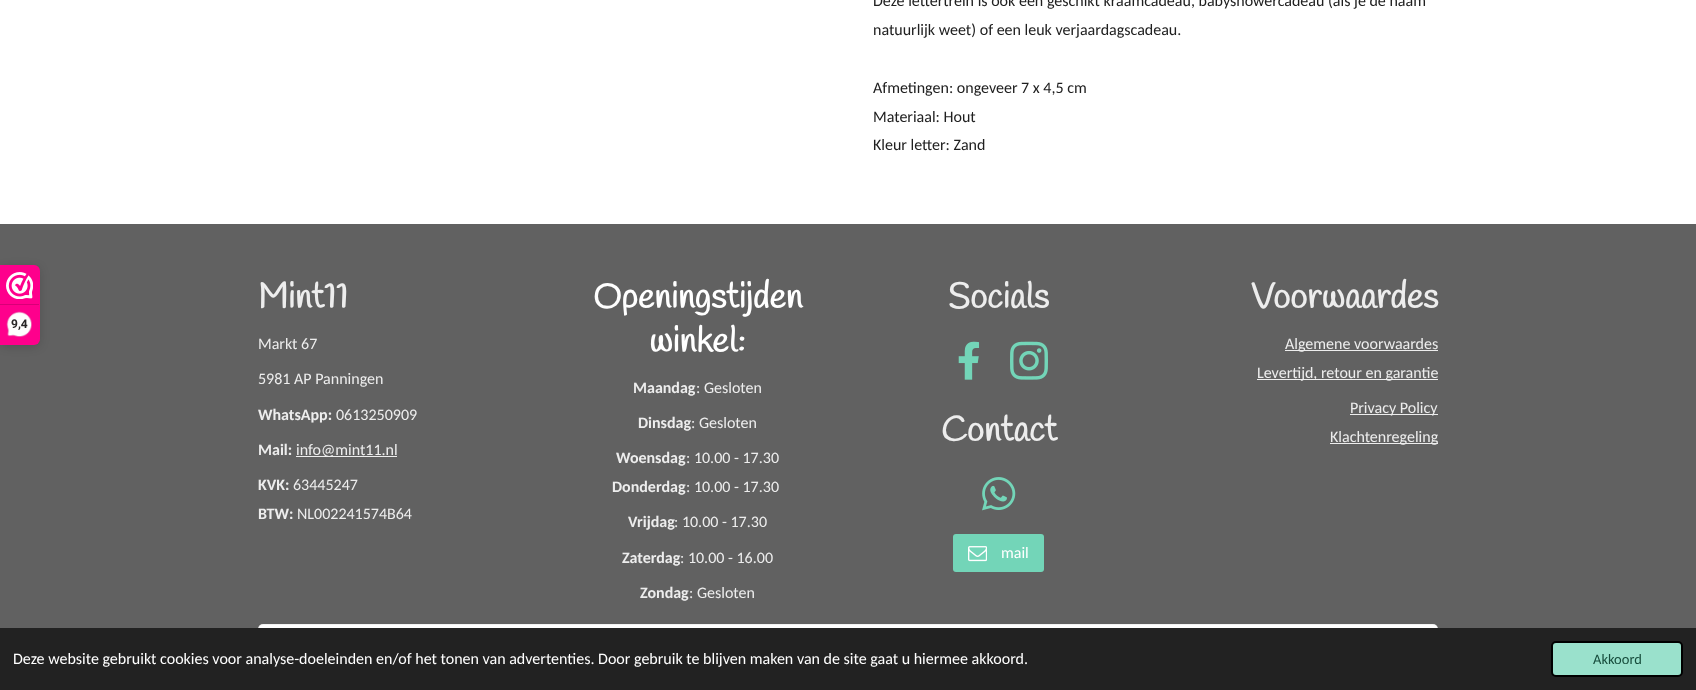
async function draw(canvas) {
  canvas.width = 1696
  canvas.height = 690
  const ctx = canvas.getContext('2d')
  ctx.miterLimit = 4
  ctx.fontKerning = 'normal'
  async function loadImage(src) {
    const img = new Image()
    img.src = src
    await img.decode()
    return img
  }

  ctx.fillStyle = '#fff'
  ctx.fillRect(0, 0, 1696, 690)
  ctx.fillStyle = '#616161'
  ctx.fillRect(0, 224, 1696, 404)
  ctx.fillStyle = '#00000026'
  ctx.filter = 'blur(5px)'
  ctx.beginPath()
  ctx.roundRect(0, 267, 40, 80, 6)
  ctx.fill()
  ctx.filter = 'none'
  ctx.fillStyle = '#fe008c'
  ctx.beginPath()
  ctx.roundRect(0, 265, 40, 80, [0, 6, 6, 0])
  ctx.fill()
  ctx.drawImage(await loadImage('image0.png'), 6, 272, 27, 27)
  ctx.fillStyle = '#d80077'
  ctx.fillRect(0, 304, 39, 1)
  ctx.drawImage(await loadImage('image1.png'), 6, 311, 26, 26)
  ctx.font = 'bold 12px Roboto'
  ctx.fillStyle = '#272626'
  ctx.fillText('9,4', 11, 328)
  ctx.font = '16px Carlito'
  ctx.fillStyle = '#202020'
  ctx.fillText('Deze lettertrein is ook een geschikt kraamcadeau, babyshowercadeau (als je de naam', 873, 6)
  ctx.fillText('natuurlijk weet) of een leuk verjaardagscadeau.', 873, 35)
  ctx.fillText('Afmetingen: ongeveer 7 x 4,5 cm', 873, 93)
  ctx.fillText('Materiaal: Hout', 873, 122)
  ctx.fillText('Kleur letter: Zand', 873, 150)
  ctx.font = 'bold 35px Handlee'
  ctx.fillStyle = '#ededed'
  ctx.fillText('Mint11', 258, 308)
  ctx.font = '16px Carlito'
  ctx.fillText('Markt 67', 258, 349)
  ctx.fillText('5981 AP Panningen', 258, 384)
  ctx.font = 'bold 16px Carlito'
  ctx.fillText('WhatsApp:', 258, 420)
  ctx.font = '16px Carlito'
  ctx.fillText('0613250909', 336, 420)
  ctx.font = 'bold 16px Carlito'
  ctx.fillText('Mail:', 258, 455)
  ctx.fillRect(296, 456, 101, 1)
  ctx.font = '16px Carlito'
  ctx.fillText('info@mint11.nl', 296, 455)
  ctx.font = 'bold 16px Carlito'
  ctx.fillText('KVK:', 258, 490)
  ctx.font = '16px Carlito'
  ctx.fillText('63445247', 293, 490)
  ctx.font = 'bold 16px Carlito'
  ctx.fillText('BTW:', 258, 519)
  ctx.font = '16px Carlito'
  ctx.fillText('NL002241574B64', 297, 519)
  ctx.font = 'bold 35px Handlee'
  ctx.fillStyle = '#fff'
  ctx.fillText('Openingstijden', 593, 308)
  ctx.fillText('winkel:', 649, 352)
  ctx.font = 'bold 16px Carlito'
  ctx.fillStyle = '#ededed'
  ctx.fillText('Maandag', 633, 393)
  ctx.font = '16px Carlito'
  ctx.fillText(': Gesloten', 696, 393)
  ctx.font = 'bold 16px Carlito'
  ctx.fillText('Dinsdag', 638, 428)
  ctx.font = '16px Carlito'
  ctx.fillText(': Gesloten', 691, 428)
  ctx.font = 'bold 16px Carlito'
  ctx.fillText('Woensdag', 616, 463)
  ctx.font = '16px Carlito'
  ctx.fillText(': 10.00 - 17.30', 686, 463)
  ctx.font = 'bold 16px Carlito'
  ctx.fillText('Donderdag', 612, 492)
  ctx.font = '16px Carlito'
  ctx.fillText(': 10.00 - 17.30', 686, 492)
  ctx.font = 'bold 16px Carlito'
  ctx.fillText('Vrijdag', 628, 527)
  ctx.font = '16px Carlito'
  ctx.fillText(': 10.00 - 17.30', 674, 527)
  ctx.font = 'bold 16px Carlito'
  ctx.fillText('Zaterdag', 622, 563)
  ctx.font = '16px Carlito'
  ctx.fillText(': 10.00 - 16.00', 680, 563)
  ctx.font = 'bold 16px Carlito'
  ctx.fillText('Zondag', 640, 598)
  ctx.font = '16px Carlito'
  ctx.fillText(': Gesloten', 689, 598)
  ctx.font = 'bold 35px Handlee'
  ctx.fillText('Socials', 948, 308)
  ctx.drawImage(await loadImage('image2.png'), 958, 341, 22, 39)
  ctx.drawImage(await loadImage('image3.png'), 1010, 341, 38, 39)
  ctx.fillText('Contact', 941, 441)
  ctx.drawImage(await loadImage('image4.png'), 982, 477, 34, 34)
  ctx.fillStyle = '#73d5b8'
  ctx.beginPath()
  ctx.roundRect(953, 534, 91, 38, 3)
  ctx.fill()
  ctx.drawImage(await loadImage('image5.png'), 968, 546, 19, 16)
  ctx.font = '16px Carlito'
  ctx.fillStyle = '#fff'
  ctx.fillText('mail', 1001, 558)
  ctx.font = 'bold 35px Handlee'
  ctx.fillStyle = '#ededed'
  ctx.fillText('Voorwaardes', 1251, 308)
  ctx.fillRect(1285, 350, 153, 1)
  ctx.font = '16px Carlito'
  ctx.fillText('Algemene voorwaardes', 1285, 349)
  ctx.fillRect(1257, 379, 181, 1)
  ctx.fillText('Levertijd, retour en garantie', 1257, 378)
  ctx.fillRect(1350, 414, 88, 1)
  ctx.fillText('Privacy Policy', 1350, 413)
  ctx.fillRect(1330, 443, 108, 1)
  ctx.fillText('Klachtenregeling', 1330, 442)
  ctx.drawImage(await loadImage('image6.png'), 258, 624, 1180, 4)
  ctx.fillStyle = '#222'
  ctx.fillRect(0, 628, 1696, 62)
  ctx.fillStyle = '#fff'
  ctx.fillText('Deze website gebruikt cookies voor analyse-doeleinden en/of het tonen van advertenties. Door gebruik te blijven maken van de site gaat u hiermee akkoord.', 13, 664)
  ctx.fillStyle = '#9ae1cc'
  ctx.beginPath()
  ctx.roundRect(1552, 642, 130, 34, 4)
  ctx.fill()
  ctx.strokeStyle = '#000'
  ctx.lineWidth = 2
  ctx.stroke()
  ctx.font = '14.5px Carlito'
  ctx.fillStyle = '#174c3c'
  ctx.fillText('Akkoord', 1593, 664)
}

draw(document.querySelector('canvas'))
